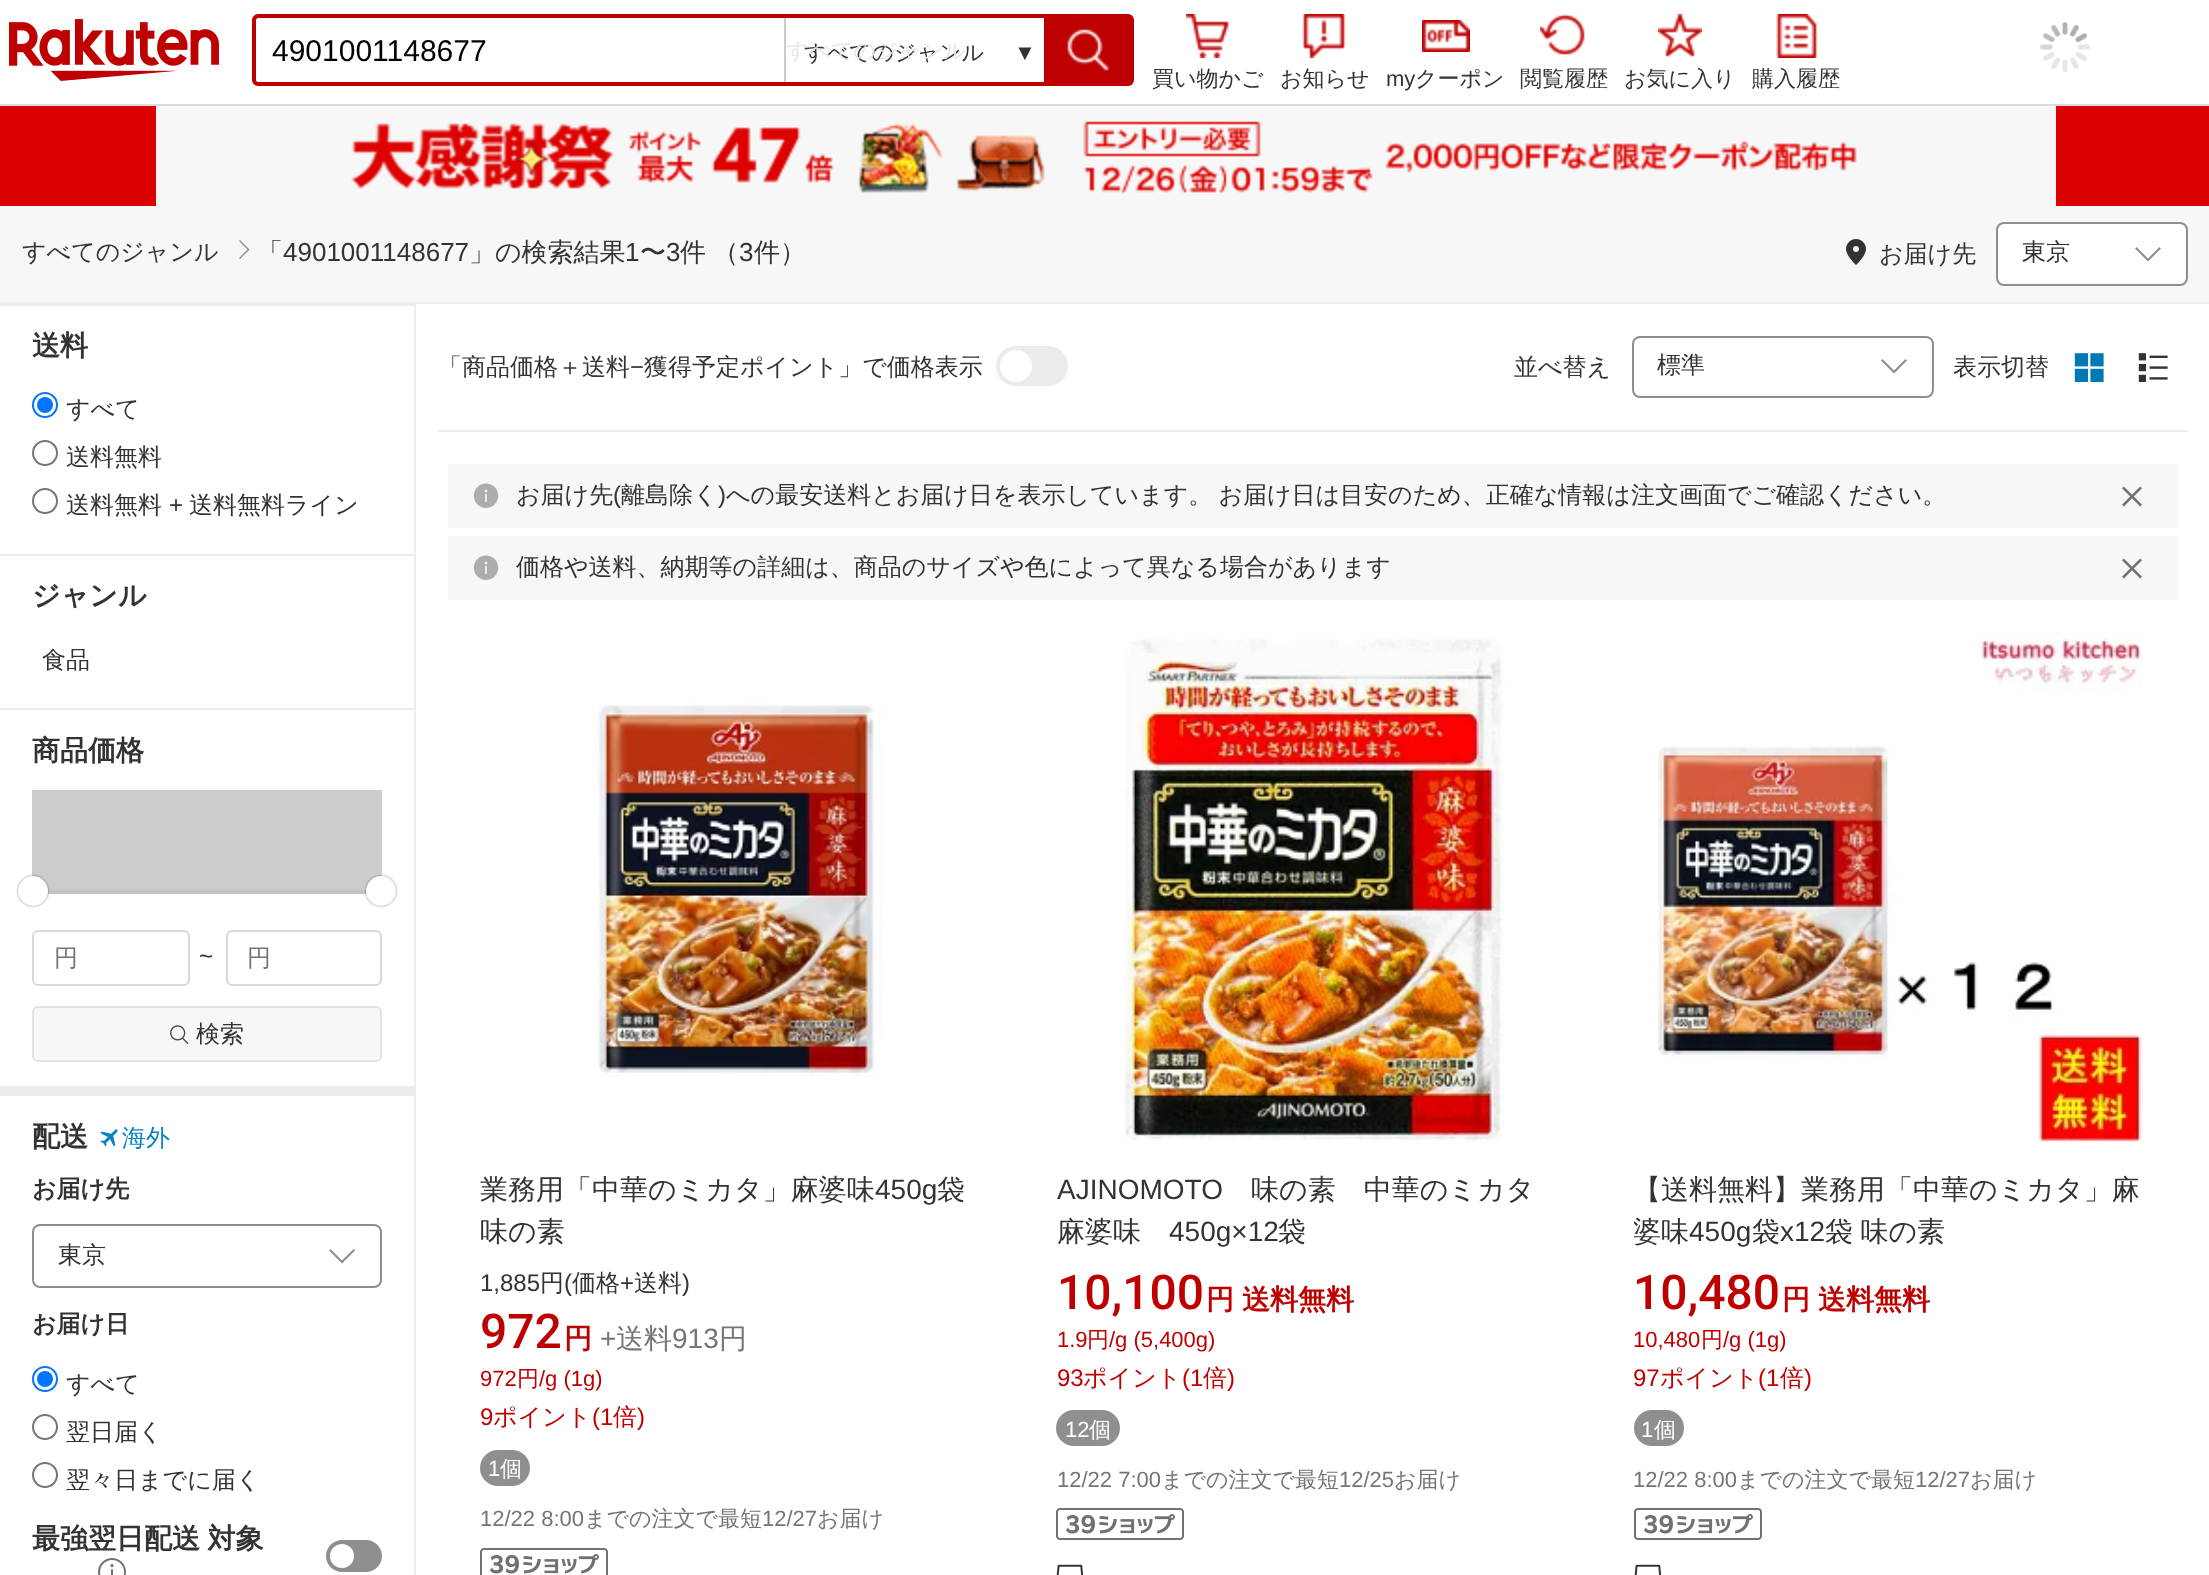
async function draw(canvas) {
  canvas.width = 2209
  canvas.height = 1575
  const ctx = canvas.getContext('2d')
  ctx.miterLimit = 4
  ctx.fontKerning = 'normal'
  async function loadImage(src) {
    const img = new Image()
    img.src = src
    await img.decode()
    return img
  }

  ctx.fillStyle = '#f7f7f7'
  ctx.fillRect(0, 0, 2209, 1575)
  ctx.fillStyle = '#fff'
  ctx.fillRect(0, 0, 2209, 104)
  ctx.fillStyle = '#dbdbdb'
  ctx.fillRect(0, 104, 2209, 2)
  ctx.drawImage(await loadImage('image0.png'), 9, 19, 210, 62)
  ctx.fillStyle = '#bf0000'
  ctx.beginPath()
  ctx.moveTo(258, 14)
  ctx.lineTo(1044, 14)
  ctx.lineTo(1044, 86)
  ctx.lineTo(258, 86)
  ctx.bezierCurveTo(255, 86, 252, 83, 252, 80)
  ctx.lineTo(252, 20)
  ctx.bezierCurveTo(252, 17, 255, 14, 258, 14)
  ctx.closePath()
  ctx.moveTo(258, 18)
  ctx.lineTo(1044, 18)
  ctx.lineTo(1044, 82)
  ctx.lineTo(258, 82)
  ctx.bezierCurveTo(257, 82, 256, 81, 256, 80)
  ctx.lineTo(256, 20)
  ctx.bezierCurveTo(256, 19, 257, 18, 258, 18)
  ctx.closePath()
  ctx.fill('evenodd')
  ctx.font = '30px Liberation Sans'
  ctx.fillStyle = '#000'
  ctx.fillText('4901001148677', 272, 61)
  ctx.font = '500 22px WenQuanYi Zen Hei'
  ctx.fillStyle = '#333'
  ctx.fillText('すべてのジャンル', 804, 60)
  ctx.fillStyle = '#e7e7e7'
  ctx.fillText('すべてのジャンル', 786, 58)
  ctx.fillStyle = '#ccc'
  ctx.fillRect(784, 18, 2, 64)
  ctx.font = '22px Liberation Sans'
  ctx.fillStyle = '#333'
  ctx.fillText('▼', 1014, 60)
  ctx.fillStyle = '#bf0000'
  ctx.beginPath()
  ctx.roundRect(1044, 14, 90, 72, [0, 6, 6, 0])
  ctx.fill()
  ctx.drawImage(await loadImage('image1.png'), 1067, 29, 42, 42)
  ctx.drawImage(await loadImage('image2.png'), 2040, 22, 50, 50)
  ctx.drawImage(await loadImage('image3.png'), 1186, 14, 44, 44)
  ctx.font = '500 22px WenQuanYi Zen Hei'
  ctx.fillStyle = '#333'
  ctx.fillText('買い物かご', 1152, 86)
  ctx.drawImage(await loadImage('image4.png'), 1302, 14, 44, 44)
  ctx.fillText('お知らせ', 1280, 86)
  ctx.drawImage(await loadImage('image5.png'), 1422, 20, 48, 32)
  ctx.font = '22px Liberation Sans'
  ctx.fillText('my', 1386, 86)
  ctx.font = '500 22px WenQuanYi Zen Hei'
  ctx.fillText('クーポン', 1415, 86)
  ctx.drawImage(await loadImage('image6.png'), 1540, 14, 45, 42)
  ctx.fillText('閲覧履歴', 1520, 86)
  ctx.drawImage(await loadImage('image7.png'), 1658, 14, 44, 43)
  ctx.fillText('お気に入り', 1624, 86)
  ctx.drawImage(await loadImage('image8.png'), 1776, 14, 42, 44)
  ctx.fillText('購入履歴', 1752, 86)
  ctx.fillStyle = '#dc0201'
  ctx.fillRect(0, 106, 2209, 100)
  ctx.drawImage(await loadImage('image9.png'), 156, 106, 1900, 100)
  ctx.font = '500 24px WenQuanYi Zen Hei'
  ctx.fillStyle = '#333'
  ctx.fillText('すべてのジャンル', 22, 260)
  ctx.fillStyle = '#8f8f8f'
  ctx.beginPath()
  ctx.moveTo(240, 240)
  ctx.lineTo(239, 241)
  ctx.lineTo(247.5, 249.5)
  ctx.lineTo(239, 258)
  ctx.lineTo(240, 259)
  ctx.lineTo(249.5, 249.5)
  ctx.closePath()
  ctx.fill()
  ctx.font = '500 26px WenQuanYi Zen Hei'
  ctx.fillStyle = '#333'
  ctx.fillText('「', 257, 261)
  ctx.font = '26px Liberation Sans'
  ctx.fillText('4901001148677', 283, 261)
  ctx.font = '500 26px WenQuanYi Zen Hei'
  ctx.fillText('」の検索結果', 469, 261)
  ctx.font = '26px Liberation Sans'
  ctx.fillText('1', 625, 261)
  ctx.font = '500 26px WenQuanYi Zen Hei'
  ctx.fillText('〜', 640, 261)
  ctx.font = '26px Liberation Sans'
  ctx.fillText('3', 666, 261)
  ctx.wordSpacing = '-1px'
  ctx.font = '500 26px WenQuanYi Zen Hei'
  ctx.fillText('件 （', 680, 261)
  ctx.wordSpacing = '0px'
  ctx.font = '26px Liberation Sans'
  ctx.fillText('3', 739, 261)
  ctx.font = '500 26px WenQuanYi Zen Hei'
  ctx.fillText('件）', 754, 261)
  ctx.drawImage(await loadImage('image10.png'), 1846, 239, 20, 26)
  ctx.font = '500 24px WenQuanYi Zen Hei'
  ctx.fillText('お届け先', 1879, 262)
  ctx.fillStyle = '#fff'
  ctx.beginPath()
  ctx.roundRect(1997, 223, 190, 62, 7)
  ctx.fill()
  ctx.strokeStyle = '#8f8f8f'
  ctx.lineWidth = 2
  ctx.stroke()
  ctx.fillStyle = '#333'
  ctx.fillText('東京', 2022, 260)
  ctx.fillStyle = '#8f8f8f'
  ctx.beginPath()
  ctx.moveTo(2161, 248.5)
  ctx.lineTo(2159.5, 247)
  ctx.lineTo(2148, 258.5)
  ctx.lineTo(2136.5, 247)
  ctx.lineTo(2135, 248.5)
  ctx.lineTo(2148, 261.5)
  ctx.closePath()
  ctx.fill()
  ctx.fillStyle = '#fff'
  ctx.fillRect(0, 304, 2209, 1271)
  ctx.fillStyle = '#ececec'
  ctx.fillRect(0, 302, 2209, 2)
  ctx.fillRect(414, 304, 2, 1271)
  ctx.fillRect(0, 304, 414, 2)
  ctx.font = 'bold 28px WenQuanYi Zen Hei'
  ctx.fillStyle = '#333'
  ctx.fillText('送料', 32, 355)
  ctx.beginPath()
  ctx.arc(45, 405, 12, 0, 2 * Math.PI)
  ctx.strokeStyle = '#0075ff'
  ctx.stroke()
  ctx.fillStyle = '#0075ff'
  ctx.beginPath()
  ctx.arc(45, 405, 8, 0, 2 * Math.PI)
  ctx.fill()
  ctx.font = '500 24px WenQuanYi Zen Hei'
  ctx.fillStyle = '#333'
  ctx.fillText('すべて', 66, 417)
  ctx.beginPath()
  ctx.arc(45, 453, 12, 0, 2 * Math.PI)
  ctx.strokeStyle = '#767676'
  ctx.stroke()
  ctx.fillText('送料無料', 66, 465)
  ctx.beginPath()
  ctx.arc(45, 501, 12, 0, 2 * Math.PI)
  ctx.stroke()
  ctx.fillText('送料無料', 66, 513)
  ctx.font = '24px Liberation Sans'
  ctx.fillText('+', 169, 513)
  ctx.font = '500 24px WenQuanYi Zen Hei'
  ctx.fillText('送料無料ライン', 189, 513)
  ctx.fillStyle = '#ececec'
  ctx.fillRect(0, 554, 414, 2)
  ctx.font = 'bold 28px WenQuanYi Zen Hei'
  ctx.fillStyle = '#333'
  ctx.fillText('ジャンル', 32, 605)
  ctx.font = '500 24px WenQuanYi Zen Hei'
  ctx.fillText('食品', 42, 668)
  ctx.fillStyle = '#ececec'
  ctx.fillRect(0, 708, 414, 2)
  ctx.font = 'bold 28px WenQuanYi Zen Hei'
  ctx.fillStyle = '#333'
  ctx.fillText('商品価格', 32, 760)
  ctx.fillStyle = '#ccc'
  ctx.fillRect(32, 790, 350, 100)
  ctx.fillStyle = '#c3c3c3'
  ctx.fillRect(47, 890, 320, 4)
  ctx.fillStyle = '#00000080'
  ctx.filter = 'blur(1px)'
  ctx.beginPath()
  ctx.roundRect(18, 876, 30, 30, 15)
  ctx.fill()
  ctx.filter = 'none'
  ctx.fillStyle = '#fff'
  ctx.beginPath()
  ctx.arc(33, 891, 15, 0, 2 * Math.PI)
  ctx.fill()
  ctx.fillStyle = '#00000080'
  ctx.filter = 'blur(1px)'
  ctx.beginPath()
  ctx.roundRect(366, 876, 30, 30, 15)
  ctx.fill()
  ctx.filter = 'none'
  ctx.fillStyle = '#fff'
  ctx.beginPath()
  ctx.arc(381, 891, 15, 0, 2 * Math.PI)
  ctx.fill()
  ctx.beginPath()
  ctx.roundRect(33, 931, 156, 54, 5)
  ctx.strokeStyle = '#d8d8d8'
  ctx.stroke()
  ctx.font = '500 24px WenQuanYi Zen Hei'
  ctx.fillStyle = '#757575'
  ctx.fillText('円', 54, 966)
  ctx.font = '24px Liberation Sans'
  ctx.fillStyle = '#333'
  ctx.fillText('~', 199, 964)
  ctx.beginPath()
  ctx.roundRect(227, 931, 154, 54, 5)
  ctx.stroke()
  ctx.font = '500 24px WenQuanYi Zen Hei'
  ctx.fillStyle = '#757575'
  ctx.fillText('円', 247, 966)
  ctx.fillStyle = '#f7f7f7'
  ctx.beginPath()
  ctx.roundRect(33, 1007, 348, 54, 5)
  ctx.fill()
  ctx.strokeStyle = '#e2e2e2'
  ctx.stroke()
  ctx.drawImage(await loadImage('image11.png'), 170, 1025, 19, 19)
  ctx.fillStyle = '#333'
  ctx.fillText('検索', 196, 1042)
  ctx.fillStyle = '#ececec'
  ctx.fillRect(0, 1086, 414, 10)
  ctx.font = 'bold 28px WenQuanYi Zen Hei'
  ctx.fillStyle = '#333'
  ctx.fillText('配送', 32, 1146)
  ctx.drawImage(await loadImage('image12.png'), 100, 1129, 18, 18)
  ctx.font = '500 24px WenQuanYi Zen Hei'
  ctx.fillStyle = '#0783c2'
  ctx.fillText('海外', 122, 1146)
  ctx.font = 'bold 24px WenQuanYi Zen Hei'
  ctx.fillStyle = '#333'
  ctx.fillText('お届け先', 32, 1197)
  ctx.beginPath()
  ctx.roundRect(33, 1225, 348, 62, 7)
  ctx.strokeStyle = '#8f8f8f'
  ctx.stroke()
  ctx.font = '500 24px WenQuanYi Zen Hei'
  ctx.fillText('東京', 58, 1263)
  ctx.fillStyle = '#8f8f8f'
  ctx.beginPath()
  ctx.moveTo(355, 1250.5)
  ctx.lineTo(353.5, 1249)
  ctx.lineTo(342, 1260.5)
  ctx.lineTo(330.5, 1249)
  ctx.lineTo(329, 1250.5)
  ctx.lineTo(342, 1263.5)
  ctx.closePath()
  ctx.fill()
  ctx.font = 'bold 24px WenQuanYi Zen Hei'
  ctx.fillStyle = '#333'
  ctx.fillText('お届け日', 32, 1332)
  ctx.beginPath()
  ctx.arc(45, 1379, 12, 0, 2 * Math.PI)
  ctx.strokeStyle = '#0075ff'
  ctx.stroke()
  ctx.fillStyle = '#0075ff'
  ctx.beginPath()
  ctx.arc(45, 1379, 8, 0, 2 * Math.PI)
  ctx.fill()
  ctx.font = '500 24px WenQuanYi Zen Hei'
  ctx.fillStyle = '#333'
  ctx.fillText('すべて', 66, 1392)
  ctx.beginPath()
  ctx.arc(45, 1427, 12, 0, 2 * Math.PI)
  ctx.strokeStyle = '#767676'
  ctx.stroke()
  ctx.fillText('翌日届く', 66, 1440)
  ctx.beginPath()
  ctx.arc(45, 1475, 12, 0, 2 * Math.PI)
  ctx.stroke()
  ctx.fillText('翌々日までに届く', 66, 1488)
  ctx.wordSpacing = '-1px'
  ctx.font = 'bold 28px WenQuanYi Zen Hei'
  ctx.fillText('最強翌日配送 対象', 32, 1548)
  ctx.drawImage(await loadImage('image13.png'), 98, 1558, 28, 17)
  ctx.fillStyle = '#8f8f8f'
  ctx.beginPath()
  ctx.roundRect(328, 1542, 52, 28, 14)
  ctx.fill()
  ctx.strokeStyle = '#8f8f8f'
  ctx.lineWidth = 4
  ctx.stroke()
  ctx.fillStyle = '#fff'
  ctx.beginPath()
  ctx.arc(342, 1556, 12, 0, 2 * Math.PI)
  ctx.fill()
  ctx.fillStyle = '#ececec'
  ctx.fillRect(438, 430, 1750, 2)
  ctx.wordSpacing = '0px'
  ctx.font = '500 24px WenQuanYi Zen Hei'
  ctx.fillStyle = '#333'
  ctx.fillText('「商品価格＋送料', 438, 375)
  ctx.font = '24px Liberation Sans'
  ctx.fillText('−', 630, 375)
  ctx.font = '500 24px WenQuanYi Zen Hei'
  ctx.fillText('獲得予定ポイント」で価格表示', 644, 375)
  ctx.fillStyle = '#ebebeb'
  ctx.beginPath()
  ctx.roundRect(996, 346, 72, 40, 20)
  ctx.fill()
  ctx.fillStyle = '#fff'
  ctx.beginPath()
  ctx.arc(1016, 366, 16, 0, 2 * Math.PI)
  ctx.fill()
  ctx.fillStyle = '#333'
  ctx.fillText('並べ替え', 1514, 375)
  ctx.beginPath()
  ctx.roundRect(1633, 337, 300, 60, 7)
  ctx.lineWidth = 2
  ctx.stroke()
  ctx.fillText('標準', 1657, 373)
  ctx.fillStyle = '#8f8f8f'
  ctx.beginPath()
  ctx.moveTo(1907, 360.5)
  ctx.lineTo(1905.5, 359)
  ctx.lineTo(1894, 370.5)
  ctx.lineTo(1882.5, 359)
  ctx.lineTo(1881, 360.5)
  ctx.lineTo(1894, 373.5)
  ctx.closePath()
  ctx.fill()
  ctx.fillStyle = '#333'
  ctx.fillText('表示切替', 1953, 375)
  ctx.drawImage(await loadImage('image14.png'), 2074, 353, 30, 29)
  ctx.drawImage(await loadImage('image15.png'), 2138, 353, 30, 29)
  ctx.fillStyle = '#f7f7f7'
  ctx.fillRect(448, 464, 1730, 64)
  ctx.drawImage(await loadImage('image16.png'), 473, 483, 26, 25)
  ctx.fillStyle = '#333'
  ctx.fillText('お届け先', 516, 503)
  ctx.font = '24px Liberation Sans'
  ctx.fillText('(', 613, 503)
  ctx.font = '500 24px WenQuanYi Zen Hei'
  ctx.fillText('離島除く', 621, 503)
  ctx.font = '24px Liberation Sans'
  ctx.fillText(')', 718, 503)
  ctx.wordSpacing = '-1px'
  ctx.font = '500 24px WenQuanYi Zen Hei'
  ctx.fillText('への最安送料とお届け日を表示しています。 お届け日は目安のため、正確な情報は注文画面でご確認ください。', 726, 503)
  ctx.drawImage(await loadImage('image17.png'), 2122, 486, 20, 21)
  ctx.fillStyle = '#f7f7f7'
  ctx.fillRect(448, 536, 1730, 64)
  ctx.drawImage(await loadImage('image16.png'), 473, 555, 26, 25)
  ctx.wordSpacing = '0px'
  ctx.fillStyle = '#333'
  ctx.fillText('価格や送料、納期等の詳細は、商品のサイズや色によって異なる場合があります', 516, 575)
  ctx.drawImage(await loadImage('image17.png'), 2122, 558, 20, 21)
  ctx.drawImage(await loadImage('image18.png'), 598, 703, 285, 374)
  ctx.font = '500 28px WenQuanYi Zen Hei'
  ctx.fillText('業務用「中華のミカタ」麻婆味', 480, 1199)
  ctx.font = '28px Liberation Sans'
  ctx.fillText('450g', 875, 1199)
  ctx.font = '500 28px WenQuanYi Zen Hei'
  ctx.fillText('袋', 937, 1199)
  ctx.fillText('味の素', 480, 1241)
  ctx.font = '24px Liberation Sans'
  ctx.fillText('1,885', 480, 1291)
  ctx.font = '500 24px WenQuanYi Zen Hei'
  ctx.fillText('円', 540, 1291)
  ctx.font = '24px Liberation Sans'
  ctx.fillText('(', 564, 1291)
  ctx.font = '500 24px WenQuanYi Zen Hei'
  ctx.fillText('価格', 572, 1291)
  ctx.font = '24px Liberation Sans'
  ctx.fillText('+', 620, 1291)
  ctx.font = '500 24px WenQuanYi Zen Hei'
  ctx.fillText('送料', 634, 1291)
  ctx.font = '24px Liberation Sans'
  ctx.fillText(')', 682, 1291)
  ctx.font = '500 48px Roboto'
  ctx.fillStyle = '#bf0000'
  ctx.fillText('972', 480, 1348)
  ctx.font = 'bold 28px WenQuanYi Zen Hei'
  ctx.fillText('円', 564, 1348)
  ctx.font = '28px Liberation Sans'
  ctx.fillStyle = '#757575'
  ctx.fillText('+', 600, 1348)
  ctx.font = '500 28px WenQuanYi Zen Hei'
  ctx.fillText('送料', 616, 1348)
  ctx.font = '28px Liberation Sans'
  ctx.fillText('913', 672, 1348)
  ctx.font = '500 28px WenQuanYi Zen Hei'
  ctx.fillText('円', 719, 1348)
  ctx.font = '22px Liberation Sans'
  ctx.fillStyle = '#bf0000'
  ctx.fillText('972', 480, 1386)
  ctx.font = '500 22px WenQuanYi Zen Hei'
  ctx.fillText('円', 517, 1386)
  ctx.font = '22px Liberation Sans'
  ctx.fillText('/g (1g)', 539, 1386)
  ctx.font = '24px Liberation Sans'
  ctx.fillText('9', 480, 1425)
  ctx.font = '500 24px WenQuanYi Zen Hei'
  ctx.fillText('ポイント', 493, 1425)
  ctx.font = '24px Liberation Sans'
  ctx.fillText('(1', 592, 1425)
  ctx.font = '500 24px WenQuanYi Zen Hei'
  ctx.fillText('倍', 613, 1425)
  ctx.font = '24px Liberation Sans'
  ctx.fillText(')', 637, 1425)
  ctx.fillStyle = '#8f8f8f'
  ctx.beginPath()
  ctx.roundRect(480, 1450, 50, 36, 18)
  ctx.fill()
  ctx.font = '22px Liberation Sans'
  ctx.fillStyle = '#fff'
  ctx.fillText('1', 488, 1476)
  ctx.font = '500 22px WenQuanYi Zen Hei'
  ctx.fillText('個', 500, 1476)
  ctx.font = '22px Liberation Sans'
  ctx.fillStyle = '#757575'
  ctx.fillText('12/22 8:00', 480, 1526)
  ctx.font = '500 22px WenQuanYi Zen Hei'
  ctx.fillText('までの注文で最短', 584, 1526)
  ctx.font = '22px Liberation Sans'
  ctx.fillText('12/27', 762, 1526)
  ctx.font = '500 22px WenQuanYi Zen Hei'
  ctx.fillText('お届け', 817, 1526)
  ctx.drawImage(await loadImage('image19.png'), 480, 1548, 128, 27)
  ctx.drawImage(await loadImage('image20.png'), 1124, 639, 381, 502)
  ctx.font = '28px Liberation Sans'
  ctx.fillStyle = '#333'
  ctx.fillText('AJINOMOTO', 1057, 1199)
  ctx.font = '500 28px WenQuanYi Zen Hei'
  ctx.fillText('味の素　中華のミカタ', 1251, 1199)
  ctx.fillText('麻婆味', 1057, 1241)
  ctx.font = '28px Liberation Sans'
  ctx.fillText('450g×12', 1169, 1241)
  ctx.font = '500 28px WenQuanYi Zen Hei'
  ctx.fillText('袋', 1278, 1241)
  ctx.font = '500 48px Roboto'
  ctx.fillStyle = '#bf0000'
  ctx.fillText('10,100', 1057, 1309)
  ctx.font = 'bold 28px WenQuanYi Zen Hei'
  ctx.fillText('円', 1206, 1309)
  ctx.fillText('送料無料', 1242, 1309)
  ctx.font = '22px Liberation Sans'
  ctx.fillText('1.9', 1057, 1347)
  ctx.font = '500 22px WenQuanYi Zen Hei'
  ctx.fillText('円', 1087, 1347)
  ctx.font = '22px Liberation Sans'
  ctx.fillText('/g (5,400g)', 1109, 1347)
  ctx.font = '24px Liberation Sans'
  ctx.fillText('93', 1057, 1386)
  ctx.font = '500 24px WenQuanYi Zen Hei'
  ctx.fillText('ポイント', 1083, 1386)
  ctx.font = '24px Liberation Sans'
  ctx.fillText('(1', 1182, 1386)
  ctx.font = '500 24px WenQuanYi Zen Hei'
  ctx.fillText('倍', 1203, 1386)
  ctx.font = '24px Liberation Sans'
  ctx.fillText(')', 1227, 1386)
  ctx.fillStyle = '#8f8f8f'
  ctx.beginPath()
  ctx.roundRect(1056, 1410, 64, 36, 18)
  ctx.fill()
  ctx.font = '22px Liberation Sans'
  ctx.fillStyle = '#fff'
  ctx.fillText('12', 1065, 1437)
  ctx.font = '500 22px WenQuanYi Zen Hei'
  ctx.fillText('個', 1089, 1437)
  ctx.font = '22px Liberation Sans'
  ctx.fillStyle = '#757575'
  ctx.fillText('12/22 7:00', 1057, 1487)
  ctx.font = '500 22px WenQuanYi Zen Hei'
  ctx.fillText('までの注文で最短', 1161, 1487)
  ctx.font = '22px Liberation Sans'
  ctx.fillText('12/25', 1339, 1487)
  ctx.font = '500 22px WenQuanYi Zen Hei'
  ctx.fillText('お届け', 1394, 1487)
  ctx.drawImage(await loadImage('image21.png'), 1056, 1508, 128, 32)
  ctx.drawImage(await loadImage('image22.png'), 1056, 1564, 28, 11)
  ctx.drawImage(await loadImage('image23.png'), 1657, 632, 486, 511)
  ctx.font = '500 28px WenQuanYi Zen Hei'
  ctx.fillStyle = '#333'
  ctx.fillText('【送料無料】業務用「中華のミカタ」麻', 1633, 1199)
  ctx.save()
  ctx.beginPath()
  ctx.rect(1634, 1170, 512, 84)
  ctx.clip()
  ctx.fillText('婆味', 1633, 1241)
  ctx.restore()
  ctx.font = '28px Liberation Sans'
  ctx.fillText('450g', 1689, 1241)
  ctx.font = '500 28px WenQuanYi Zen Hei'
  ctx.fillText('袋', 1752, 1241)
  ctx.font = '28px Liberation Sans'
  ctx.fillText('x12', 1780, 1241)
  ctx.wordSpacing = '-1px'
  ctx.font = '500 28px WenQuanYi Zen Hei'
  ctx.fillText('袋 味の素', 1825, 1241)
  ctx.wordSpacing = '0px'
  ctx.font = '500 48px Roboto'
  ctx.fillStyle = '#bf0000'
  ctx.fillText('10,480', 1633, 1309)
  ctx.font = 'bold 28px WenQuanYi Zen Hei'
  ctx.fillText('円', 1782, 1309)
  ctx.fillText('送料無料', 1818, 1309)
  ctx.font = '22px Liberation Sans'
  ctx.fillText('10,480', 1633, 1347)
  ctx.font = '500 22px WenQuanYi Zen Hei'
  ctx.fillText('円', 1701, 1347)
  ctx.font = '22px Liberation Sans'
  ctx.fillText('/g (1g)', 1723, 1347)
  ctx.font = '24px Liberation Sans'
  ctx.fillText('97', 1633, 1386)
  ctx.font = '500 24px WenQuanYi Zen Hei'
  ctx.fillText('ポイント', 1660, 1386)
  ctx.font = '24px Liberation Sans'
  ctx.fillText('(1', 1758, 1386)
  ctx.font = '500 24px WenQuanYi Zen Hei'
  ctx.fillText('倍', 1780, 1386)
  ctx.font = '24px Liberation Sans'
  ctx.fillText(')', 1804, 1386)
  ctx.fillStyle = '#8f8f8f'
  ctx.beginPath()
  ctx.roundRect(1634, 1410, 50, 36, 18)
  ctx.fill()
  ctx.font = '22px Liberation Sans'
  ctx.fillStyle = '#fff'
  ctx.fillText('1', 1641, 1437)
  ctx.font = '500 22px WenQuanYi Zen Hei'
  ctx.fillText('個', 1654, 1437)
  ctx.font = '22px Liberation Sans'
  ctx.fillStyle = '#757575'
  ctx.fillText('12/22 8:00', 1633, 1487)
  ctx.font = '500 22px WenQuanYi Zen Hei'
  ctx.fillText('までの注文で最短', 1737, 1487)
  ctx.font = '22px Liberation Sans'
  ctx.fillText('12/27', 1915, 1487)
  ctx.font = '500 22px WenQuanYi Zen Hei'
  ctx.fillText('お届け', 1970, 1487)
  ctx.drawImage(await loadImage('image21.png'), 1634, 1508, 128, 32)
  ctx.drawImage(await loadImage('image22.png'), 1634, 1564, 28, 11)
}

draw(document.querySelector('canvas'))
